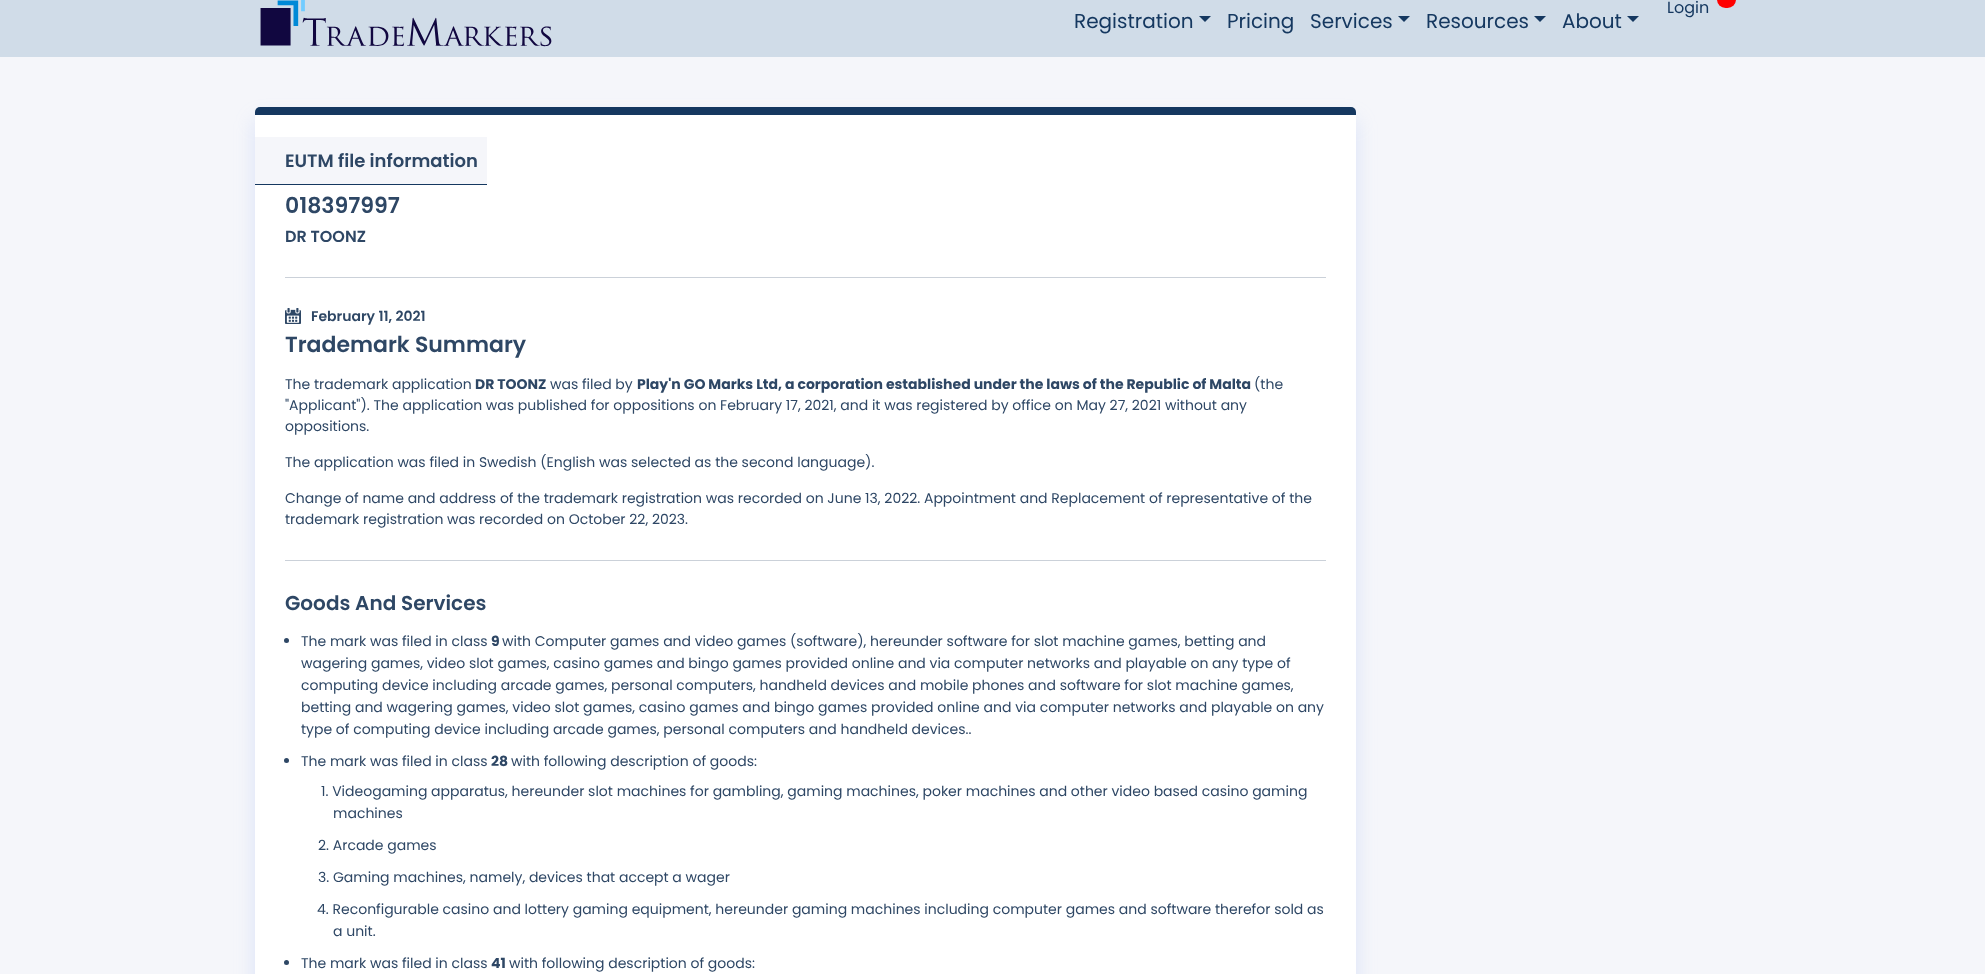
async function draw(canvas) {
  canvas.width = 1985
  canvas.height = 974
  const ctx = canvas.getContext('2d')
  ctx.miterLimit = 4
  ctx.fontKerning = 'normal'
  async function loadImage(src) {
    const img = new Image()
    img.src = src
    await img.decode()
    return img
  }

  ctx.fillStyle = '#f5f6fa'
  ctx.fillRect(0, 0, 1985, 974)
  ctx.fillStyle = '#d0dce8'
  ctx.fillRect(0, 0, 1985, 57)
  ctx.drawImage(await loadImage('image0.png'), 260, 0, 292, 47)
  ctx.font = '16px Poppins'
  ctx.fillStyle = '#153860'
  ctx.fillText('Login', 1667, 13)
  ctx.fillStyle = '#f00'
  ctx.beginPath()
  ctx.roundRect(1717, -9, 19, 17, 9)
  ctx.fill()
  ctx.font = '20px Poppins'
  ctx.fillStyle = '#153860'
  ctx.fillText('Registration', 1074, 28)
  ctx.beginPath()
  ctx.moveTo(1199, 16)
  ctx.lineTo(1211, 16)
  ctx.lineTo(1205, 22)
  ctx.closePath()
  ctx.fill()
  ctx.fillText('Pricing', 1227, 28)
  ctx.fillText('Services', 1310, 28)
  ctx.beginPath()
  ctx.moveTo(1398, 16)
  ctx.lineTo(1410, 16)
  ctx.lineTo(1404, 22)
  ctx.closePath()
  ctx.fill()
  ctx.fillText('Resources', 1426, 28)
  ctx.beginPath()
  ctx.moveTo(1534, 16)
  ctx.lineTo(1546, 16)
  ctx.lineTo(1540, 22)
  ctx.closePath()
  ctx.fill()
  ctx.fillText('About', 1562, 28)
  ctx.beginPath()
  ctx.moveTo(1627, 16)
  ctx.lineTo(1639, 16)
  ctx.lineTo(1633, 22)
  ctx.closePath()
  ctx.fill()
  ctx.fillStyle = '#9ab5f64d'
  ctx.filter = 'blur(10px)'
  ctx.beginPath()
  ctx.roundRect(255, 120, 1101, 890, 6)
  ctx.fill()
  ctx.filter = 'none'
  ctx.fillStyle = '#fff'
  ctx.beginPath()
  ctx.roundRect(255, 107, 1101, 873, 6)
  ctx.fill()
  ctx.fillStyle = '#153860'
  ctx.beginPath()
  ctx.roundRect(255, 107, 1101, 8, [5, 5, 0, 0])
  ctx.fill()
  ctx.fillStyle = '#f5f6fa'
  ctx.fillRect(255, 137, 232, 47)
  ctx.fillStyle = '#153860'
  ctx.fillRect(255, 184, 232, 1)
  ctx.font = '600 18px Poppins'
  ctx.fillStyle = '#2e4765'
  ctx.fillText('EUTM file information', 285, 167)
  ctx.font = '600 22px Poppins'
  ctx.fillText('018397997', 285, 213)
  ctx.font = '600 16px Poppins'
  ctx.fillText('DR TOONZ', 285, 242)
  ctx.fillStyle = '#cbd1d9'
  ctx.fillRect(285, 277, 1041, 1)
  ctx.drawImage(await loadImage('image1.png'), 285, 308, 16, 16)
  ctx.font = '600 14px Poppins'
  ctx.fillStyle = '#2e4765'
  ctx.fillText('February 11, 2021', 311, 321)
  ctx.font = '600 22px Poppins'
  ctx.fillText('Trademark Summary', 285, 352)
  ctx.font = '14px Poppins'
  ctx.fillText('The trademark application', 285, 389)
  ctx.font = 'bold 14px Poppins'
  ctx.fillText('DR TOONZ', 475, 389)
  ctx.font = '14px Poppins'
  ctx.fillText('was filed by', 550, 389)
  ctx.font = 'bold 14px Poppins'
  ctx.fillText('Play\'n GO Marks Ltd, a corporation established under the laws of the Republic of Malta', 637, 389)
  ctx.font = '14px Poppins'
  ctx.fillText('(the', 1254, 389)
  ctx.fillText('"Applicant"). The application was published for oppositions on February 17, 2021, and it was registered by office on May 27, 2021 without any', 285, 410)
  ctx.fillText('oppositions.', 285, 431)
  ctx.fillText('The application was filed in Swedish (English was selected as the second language).', 285, 467)
  ctx.fillText('Change of name and address of the trademark registration was recorded on June 13, 2022. Appointment and Replacement of representative of the', 285, 503)
  ctx.fillText('trademark registration was recorded on October 22, 2023.', 285, 524)
  ctx.fillStyle = '#cbd1d9'
  ctx.fillRect(285, 560, 1041, 1)
  ctx.font = '600 20px Poppins'
  ctx.fillStyle = '#2e4765'
  ctx.fillText('Goods And Services', 285, 610)
  ctx.beginPath()
  ctx.arc(286.5, 640.5, 2.5, 0, 2 * Math.PI)
  ctx.fill()
  ctx.font = '14px Poppins'
  ctx.fillText('The mark was filed in class', 301, 646)
  ctx.font = 'bold 14px Poppins'
  ctx.fillText('9', 491, 646)
  ctx.font = '14px Poppins'
  ctx.fillText('with Computer games and video games (software), hereunder software for slot machine games, betting and', 502, 646)
  ctx.fillText('wagering games, video slot games, casino games and bingo games provided online and via computer networks and playable on any type of', 301, 668)
  ctx.fillText('computing device including arcade games, personal computers, handheld devices and mobile phones and software for slot machine games,', 301, 690)
  ctx.fillText('betting and wagering games, video slot games, casino games and bingo games provided online and via computer networks and playable on any', 301, 712)
  ctx.fillText('type of computing device including arcade games, personal computers and handheld devices..', 301, 734)
  ctx.beginPath()
  ctx.arc(286.5, 760.5, 2.5, 0, 2 * Math.PI)
  ctx.fill()
  ctx.fillText('The mark was filed in class', 301, 766)
  ctx.font = 'bold 14px Poppins'
  ctx.fillText('28', 491, 766)
  ctx.font = '14px Poppins'
  ctx.fillText('with following description of goods:', 511, 766)
  ctx.fillText('1. Videogaming apparatus, hereunder slot machines for gambling, gaming machines, poker machines and other video based casino gaming', 321, 796)
  ctx.fillText('machines', 333, 818)
  ctx.fillText('2. Arcade games', 318, 850)
  ctx.fillText('3. Gaming machines, namely, devices that accept a wager', 318, 882)
  ctx.fillText('4. Reconfigurable casino and lottery gaming equipment, hereunder gaming machines including computer games and software therefor sold as', 317, 914)
  ctx.fillText('a unit.', 333, 936)
  ctx.beginPath()
  ctx.arc(286.5, 962.5, 2.5, 0, 2 * Math.PI)
  ctx.fill()
  ctx.fillText('The mark was filed in class', 301, 968)
  ctx.font = 'bold 14px Poppins'
  ctx.fillText('41', 491, 968)
  ctx.font = '14px Poppins'
  ctx.fillText('with following description of goods:', 509, 968)
}

draw(document.querySelector('canvas'))
